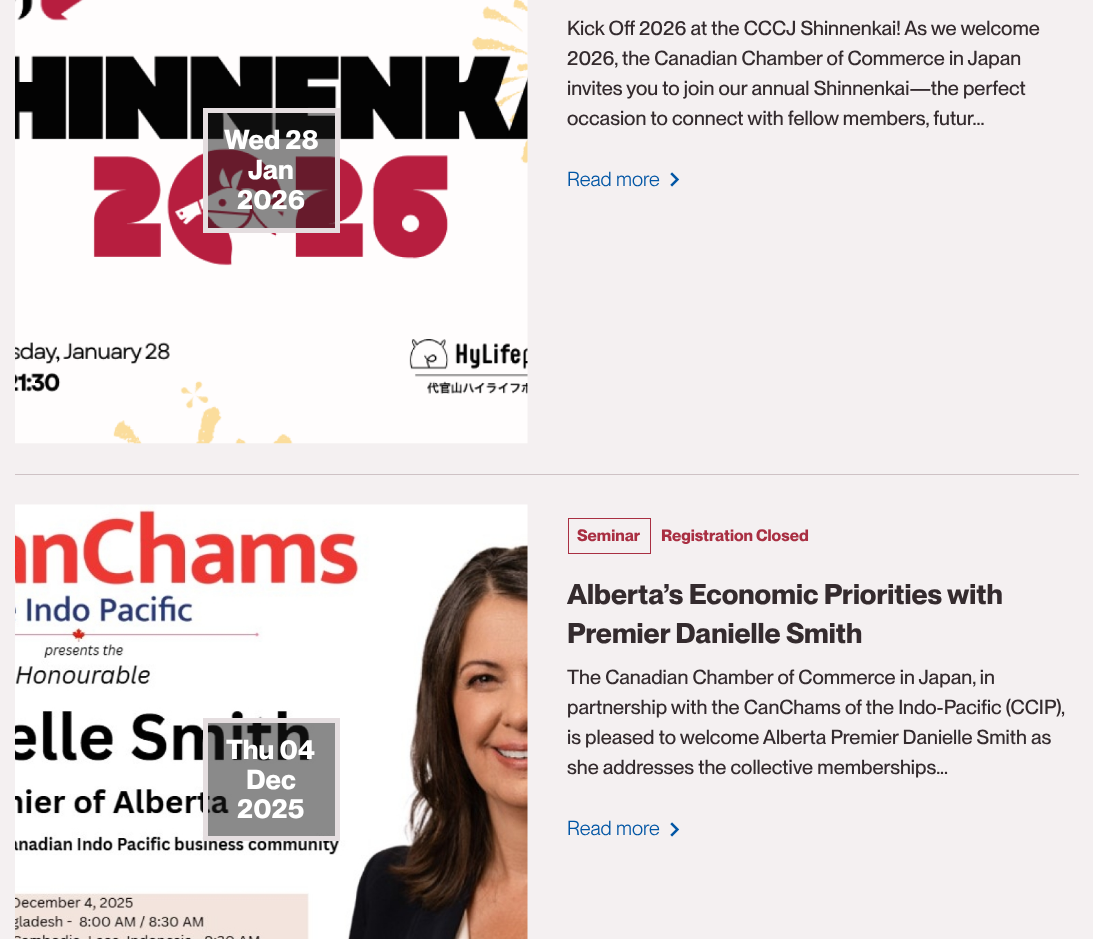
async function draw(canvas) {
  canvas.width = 1093
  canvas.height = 939
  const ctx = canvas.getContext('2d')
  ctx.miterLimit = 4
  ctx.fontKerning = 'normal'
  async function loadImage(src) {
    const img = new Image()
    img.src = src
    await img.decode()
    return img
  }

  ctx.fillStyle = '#f4f0f1'
  ctx.fillRect(0, 0, 1093, 939)
  ctx.drawImage(await loadImage('image0.png'), 15, 0, 513, 444)
  ctx.fillStyle = '#19191982'
  ctx.beginPath()
  ctx.rect(205.5, 110.5, 132, 120)
  ctx.fill()
  ctx.strokeStyle = '#e5dee0'
  ctx.lineWidth = 5
  ctx.stroke()
  ctx.font = 'bold 27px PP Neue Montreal'
  ctx.fillStyle = '#fff'
  ctx.fillText('Wed 28', 224, 149)
  ctx.fillText('Jan', 248, 179)
  ctx.fillText('2026', 237, 209)
  ctx.font = '500 20px PP Neue Montreal'
  ctx.fillStyle = '#342b2e'
  ctx.fillText('Kick Off 2026 at the CCCJ Shinnenkai! As we welcome', 567, 35)
  ctx.fillText('2026, the Canadian Chamber of Commerce in Japan', 567, 65)
  ctx.fillText('invites you to join our annual Shinnenkai—the perfect', 567, 95)
  ctx.fillText('occasion to connect with fellow members, futur...', 567, 125)
  ctx.font = '20px PP Neue Montreal'
  ctx.fillStyle = '#0055a4'
  ctx.fillText('Read more', 567, 186)
  ctx.drawImage(await loadImage('image1.png'), 670, 172, 10, 15)
  ctx.fillStyle = '#cec2c5'
  ctx.fillRect(15, 474, 1064, 1)
  ctx.drawImage(await loadImage('image2.png'), 15, 504, 513, 435)
  ctx.fillStyle = '#19191982'
  ctx.beginPath()
  ctx.rect(205.5, 720.5, 132, 118)
  ctx.fill()
  ctx.stroke()
  ctx.font = 'bold 27px PP Neue Montreal'
  ctx.fillStyle = '#fff'
  ctx.fillText('Thu 04', 226, 759)
  ctx.fillText('Dec', 246, 789)
  ctx.fillText('2025', 237, 818)
  ctx.strokeStyle = '#a92f42'
  ctx.lineWidth = 1
  ctx.strokeRect(568.5, 518.5, 82, 35)
  ctx.font = 'bold 16.25px PP Neue Montreal'
  ctx.fillStyle = '#a92f42'
  ctx.fillText('Seminar', 577, 541)
  ctx.fillText('Registration Closed', 661, 541)
  ctx.font = 'bold 28.1px PP Neue Montreal'
  ctx.fillStyle = '#342b2e'
  ctx.fillText('Alberta’s Economic Priorities with', 567, 604)
  ctx.fillText('Premier Danielle Smith', 567, 643)
  ctx.font = '500 20px PP Neue Montreal'
  ctx.fillText('The Canadian Chamber of Commerce in Japan, in', 567, 684)
  ctx.fillText('partnership with the CanChams of the Indo-Pacific (CCIP),', 567, 714)
  ctx.fillText('is pleased to welcome Alberta Premier Danielle Smith as', 567, 744)
  ctx.fillText('she addresses the collective memberships...', 567, 774)
  ctx.font = '20px PP Neue Montreal'
  ctx.fillStyle = '#0055a4'
  ctx.fillText('Read more', 567, 835)
  ctx.drawImage(await loadImage('image1.png'), 670, 822, 10, 15)
}

draw(document.querySelector('canvas'))
